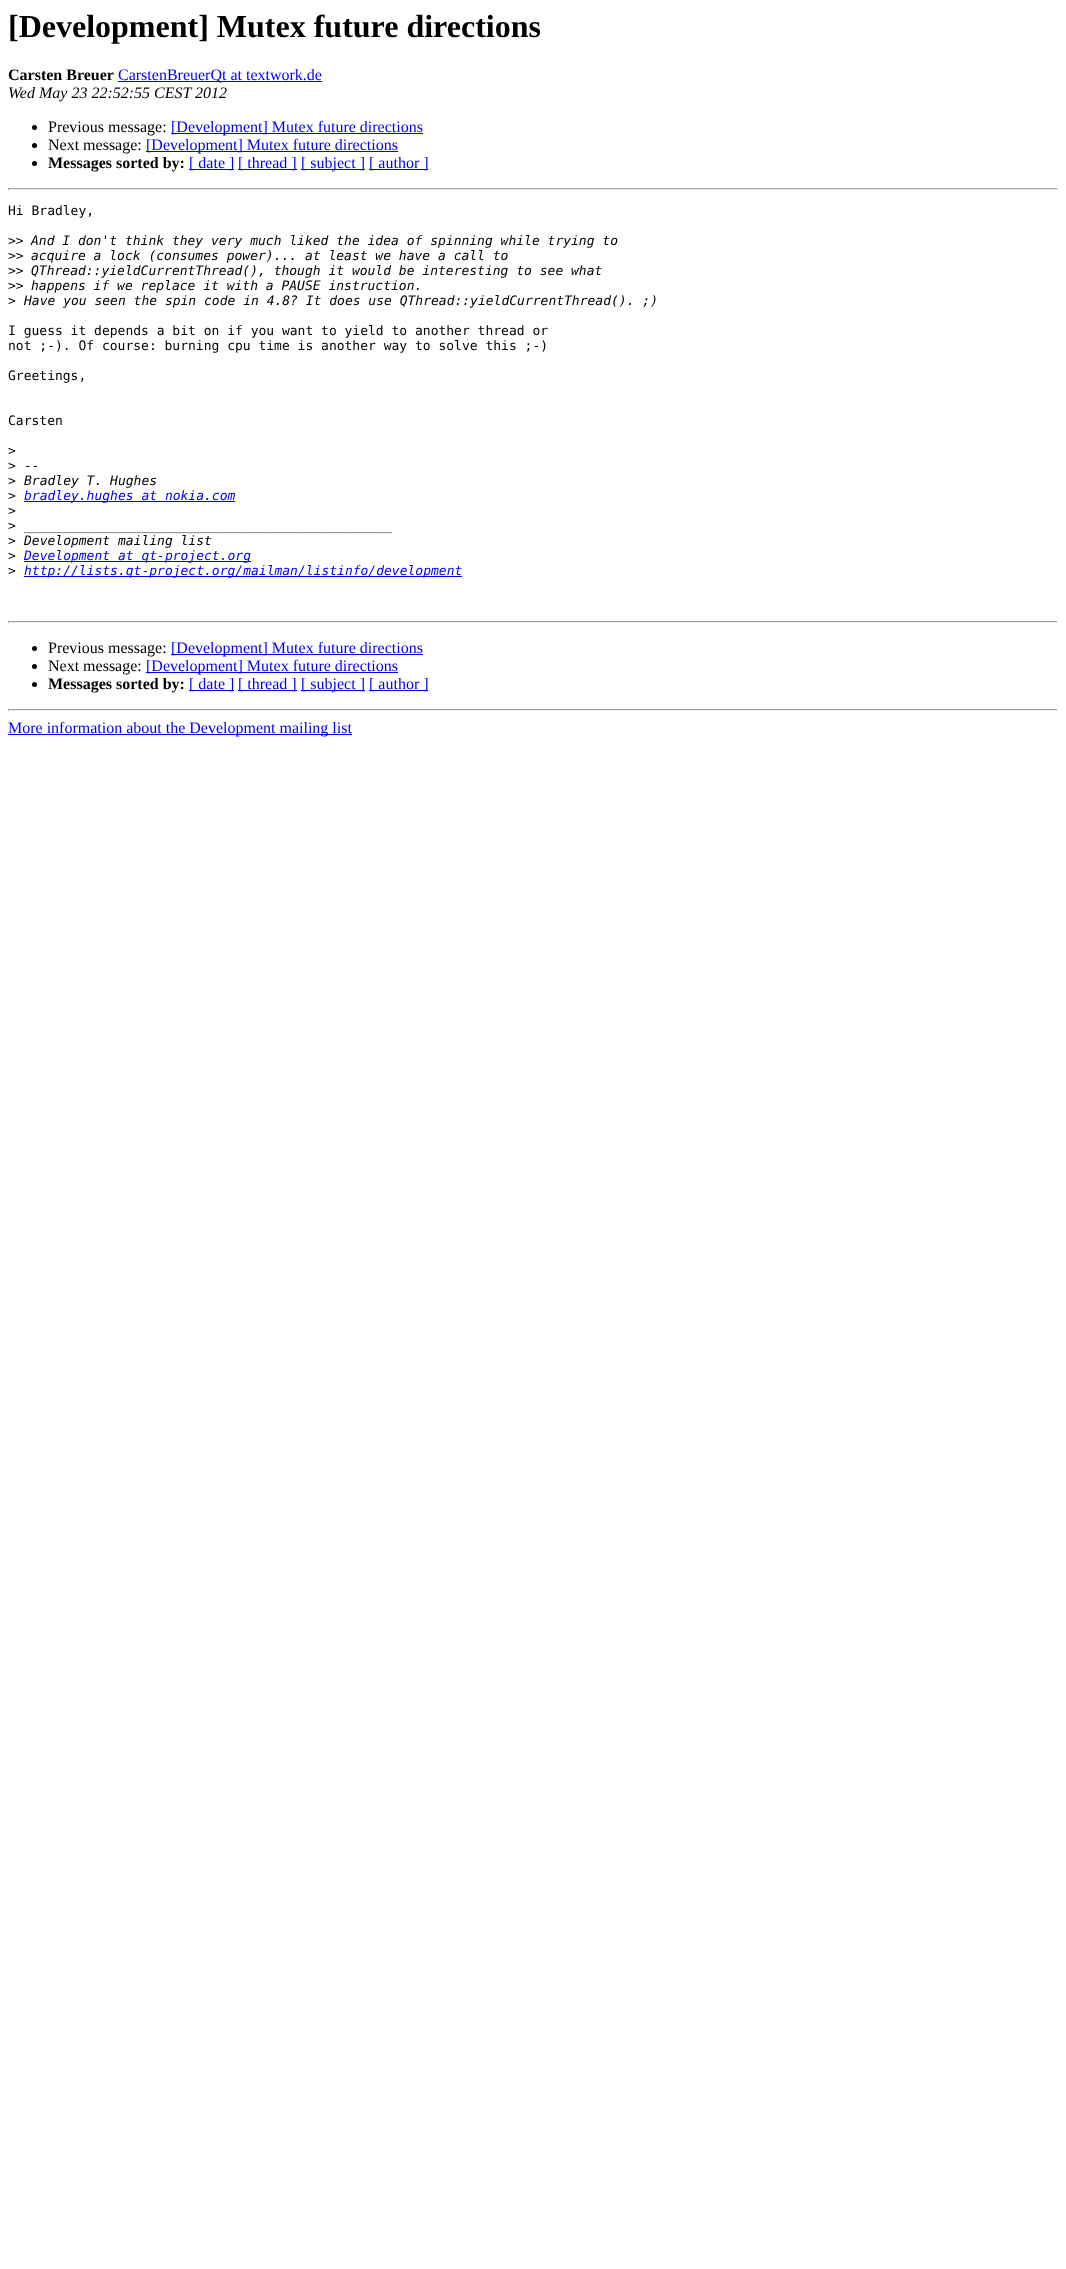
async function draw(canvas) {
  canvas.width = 1066
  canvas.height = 2269
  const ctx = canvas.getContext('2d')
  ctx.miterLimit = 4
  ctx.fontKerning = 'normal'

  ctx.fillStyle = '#fff'
  ctx.fillRect(0, 0, 1066, 2269)
  ctx.font = 'bold 32px Liberation Serif'
  ctx.fillStyle = '#000'
  ctx.fillText('[Development] Mutex future directions', 8, 37)
  ctx.font = 'bold 16px Liberation Serif'
  ctx.fillText('Carsten Breuer', 8, 80)
  ctx.fillStyle = '#00e'
  ctx.fillRect(118, 81, 204, 1)
  ctx.font = '16px Liberation Serif'
  ctx.fillText('CarstenBreuerQt at textwork.de', 118, 80)
  ctx.font = 'italic 16px Liberation Serif'
  ctx.fillStyle = '#000'
  ctx.fillText('Wed May 23 22:52:55 CEST 2012', 8, 98)
  ctx.beginPath()
  ctx.arc(34.5, 127.5, 2.5, 0, 2 * Math.PI)
  ctx.fill()
  ctx.font = '16px Liberation Serif'
  ctx.fillText('Previous message:', 48, 132)
  ctx.fillStyle = '#00e'
  ctx.fillRect(171, 133, 252, 1)
  ctx.fillText('[Development] Mutex future directions', 171, 132)
  ctx.fillStyle = '#000'
  ctx.beginPath()
  ctx.arc(34.5, 145.5, 2.5, 0, 2 * Math.PI)
  ctx.fill()
  ctx.fillText('Next message:', 48, 150)
  ctx.fillStyle = '#00e'
  ctx.fillRect(146, 151, 252, 1)
  ctx.fillText('[Development] Mutex future directions', 146, 150)
  ctx.fillStyle = '#000'
  ctx.beginPath()
  ctx.arc(34.5, 163.5, 2.5, 0, 2 * Math.PI)
  ctx.fill()
  ctx.font = 'bold 16px Liberation Serif'
  ctx.fillText('Messages sorted by:', 48, 168)
  ctx.fillStyle = '#00e'
  ctx.fillRect(189, 169, 45, 1)
  ctx.font = '16px Liberation Serif'
  ctx.fillText('[ date ]', 189, 168)
  ctx.fillRect(238, 169, 59, 1)
  ctx.fillText('[ thread ]', 238, 168)
  ctx.fillRect(301, 169, 64, 1)
  ctx.fillText('[ subject ]', 301, 168)
  ctx.fillRect(369, 169, 59, 1)
  ctx.fillText('[ author ]', 369, 168)
  ctx.fillStyle = '#9f9f9f'
  ctx.fillRect(8, 188, 1050, 1)
  ctx.fillStyle = '#eee'
  ctx.fillRect(1057, 188, 1, 2)
  ctx.fillRect(8, 189, 1050, 1)
  ctx.fillStyle = '#9f9f9f'
  ctx.fillRect(8, 188, 1, 2)
  ctx.font = '13px DejaVu Sans Mono'
  ctx.fillStyle = '#000'
  ctx.fillText('Hi Bradley,', 8, 215)
  ctx.fillText('>>', 8, 245)
  ctx.font = 'italic 13px DejaVu Sans Mono'
  ctx.fillText('And I don\'t think they very much liked the idea of spinning while trying to', 31, 245)
  ctx.font = '13px DejaVu Sans Mono'
  ctx.fillText('>>', 8, 260)
  ctx.font = 'italic 13px DejaVu Sans Mono'
  ctx.fillText('acquire a lock (consumes power)... at least we have a call to', 31, 260)
  ctx.font = '13px DejaVu Sans Mono'
  ctx.fillText('>>', 8, 275)
  ctx.font = 'italic 13px DejaVu Sans Mono'
  ctx.fillText('QThread::yieldCurrentThread(), though it would be interesting to see what', 31, 275)
  ctx.font = '13px DejaVu Sans Mono'
  ctx.fillText('>>', 8, 290)
  ctx.font = 'italic 13px DejaVu Sans Mono'
  ctx.fillText('happens if we replace it with a PAUSE instruction.', 31, 290)
  ctx.font = '13px DejaVu Sans Mono'
  ctx.fillText('>', 8, 305)
  ctx.font = 'italic 13px DejaVu Sans Mono'
  ctx.fillText('Have you seen the spin code in 4.8? It does use QThread::yieldCurrentThread(). ;)', 24, 305)
  ctx.font = '13px DejaVu Sans Mono'
  ctx.fillText('I guess it depends a bit on if you want to yield to another thread or', 8, 335)
  ctx.fillText('not ;-). Of course: burning cpu time is another way to solve this ;-)', 8, 350)
  ctx.fillText('Greetings,', 8, 380)
  ctx.fillText('Carsten', 8, 425)
  ctx.fillText('>', 8, 455)
  ctx.fillText('>', 8, 470)
  ctx.font = 'italic 13px DejaVu Sans Mono'
  ctx.fillText('--', 24, 470)
  ctx.font = '13px DejaVu Sans Mono'
  ctx.fillText('>', 8, 485)
  ctx.font = 'italic 13px DejaVu Sans Mono'
  ctx.fillText('Bradley T. Hughes', 24, 485)
  ctx.font = '13px DejaVu Sans Mono'
  ctx.fillText('>', 8, 500)
  ctx.fillStyle = '#00e'
  ctx.fillRect(24, 501, 211, 1)
  ctx.font = 'italic 13px DejaVu Sans Mono'
  ctx.fillText('bradley.hughes at nokia.com', 24, 500)
  ctx.font = '13px DejaVu Sans Mono'
  ctx.fillStyle = '#000'
  ctx.fillText('>', 8, 515)
  ctx.fillText('>', 8, 530)
  ctx.font = 'italic 13px DejaVu Sans Mono'
  ctx.fillText('_______________________________________________', 24, 530)
  ctx.font = '13px DejaVu Sans Mono'
  ctx.fillText('>', 8, 545)
  ctx.font = 'italic 13px DejaVu Sans Mono'
  ctx.fillText('Development mailing list', 24, 545)
  ctx.font = '13px DejaVu Sans Mono'
  ctx.fillText('>', 8, 560)
  ctx.fillStyle = '#00e'
  ctx.fillRect(24, 561, 227, 1)
  ctx.font = 'italic 13px DejaVu Sans Mono'
  ctx.fillText('Development at qt-project.org', 24, 560)
  ctx.font = '13px DejaVu Sans Mono'
  ctx.fillStyle = '#000'
  ctx.fillText('>', 8, 575)
  ctx.fillStyle = '#00e'
  ctx.fillRect(24, 576, 438, 1)
  ctx.font = 'italic 13px DejaVu Sans Mono'
  ctx.fillText('http://lists.qt-project.org/mailman/listinfo/development', 24, 575)
  ctx.fillStyle = '#9f9f9f'
  ctx.fillRect(8, 621, 1050, 1)
  ctx.fillStyle = '#eee'
  ctx.fillRect(1057, 621, 1, 2)
  ctx.fillRect(8, 622, 1050, 1)
  ctx.fillStyle = '#9f9f9f'
  ctx.fillRect(8, 621, 1, 2)
  ctx.fillStyle = '#000'
  ctx.beginPath()
  ctx.arc(34.5, 648.5, 2.5, 0, 2 * Math.PI)
  ctx.fill()
  ctx.font = '16px Liberation Serif'
  ctx.fillText('Previous message:', 48, 653)
  ctx.fillStyle = '#00e'
  ctx.fillRect(171, 654, 252, 1)
  ctx.fillText('[Development] Mutex future directions', 171, 653)
  ctx.fillStyle = '#000'
  ctx.beginPath()
  ctx.arc(34.5, 666.5, 2.5, 0, 2 * Math.PI)
  ctx.fill()
  ctx.fillText('Next message:', 48, 671)
  ctx.fillStyle = '#00e'
  ctx.fillRect(146, 672, 252, 1)
  ctx.fillText('[Development] Mutex future directions', 146, 671)
  ctx.fillStyle = '#000'
  ctx.beginPath()
  ctx.arc(34.5, 684.5, 2.5, 0, 2 * Math.PI)
  ctx.fill()
  ctx.font = 'bold 16px Liberation Serif'
  ctx.fillText('Messages sorted by:', 48, 689)
  ctx.fillStyle = '#00e'
  ctx.fillRect(189, 690, 45, 1)
  ctx.font = '16px Liberation Serif'
  ctx.fillText('[ date ]', 189, 689)
  ctx.fillRect(238, 690, 59, 1)
  ctx.fillText('[ thread ]', 238, 689)
  ctx.fillRect(301, 690, 64, 1)
  ctx.fillText('[ subject ]', 301, 689)
  ctx.fillRect(369, 690, 59, 1)
  ctx.fillText('[ author ]', 369, 689)
  ctx.fillStyle = '#9f9f9f'
  ctx.fillRect(8, 709, 1050, 1)
  ctx.fillStyle = '#eee'
  ctx.fillRect(1057, 709, 1, 2)
  ctx.fillRect(8, 710, 1050, 1)
  ctx.fillStyle = '#9f9f9f'
  ctx.fillRect(8, 709, 1, 2)
  ctx.fillStyle = '#00e'
  ctx.fillRect(8, 734, 344, 1)
  ctx.fillText('More information about the Development mailing list', 8, 733)
}

draw(document.querySelector('canvas'))
